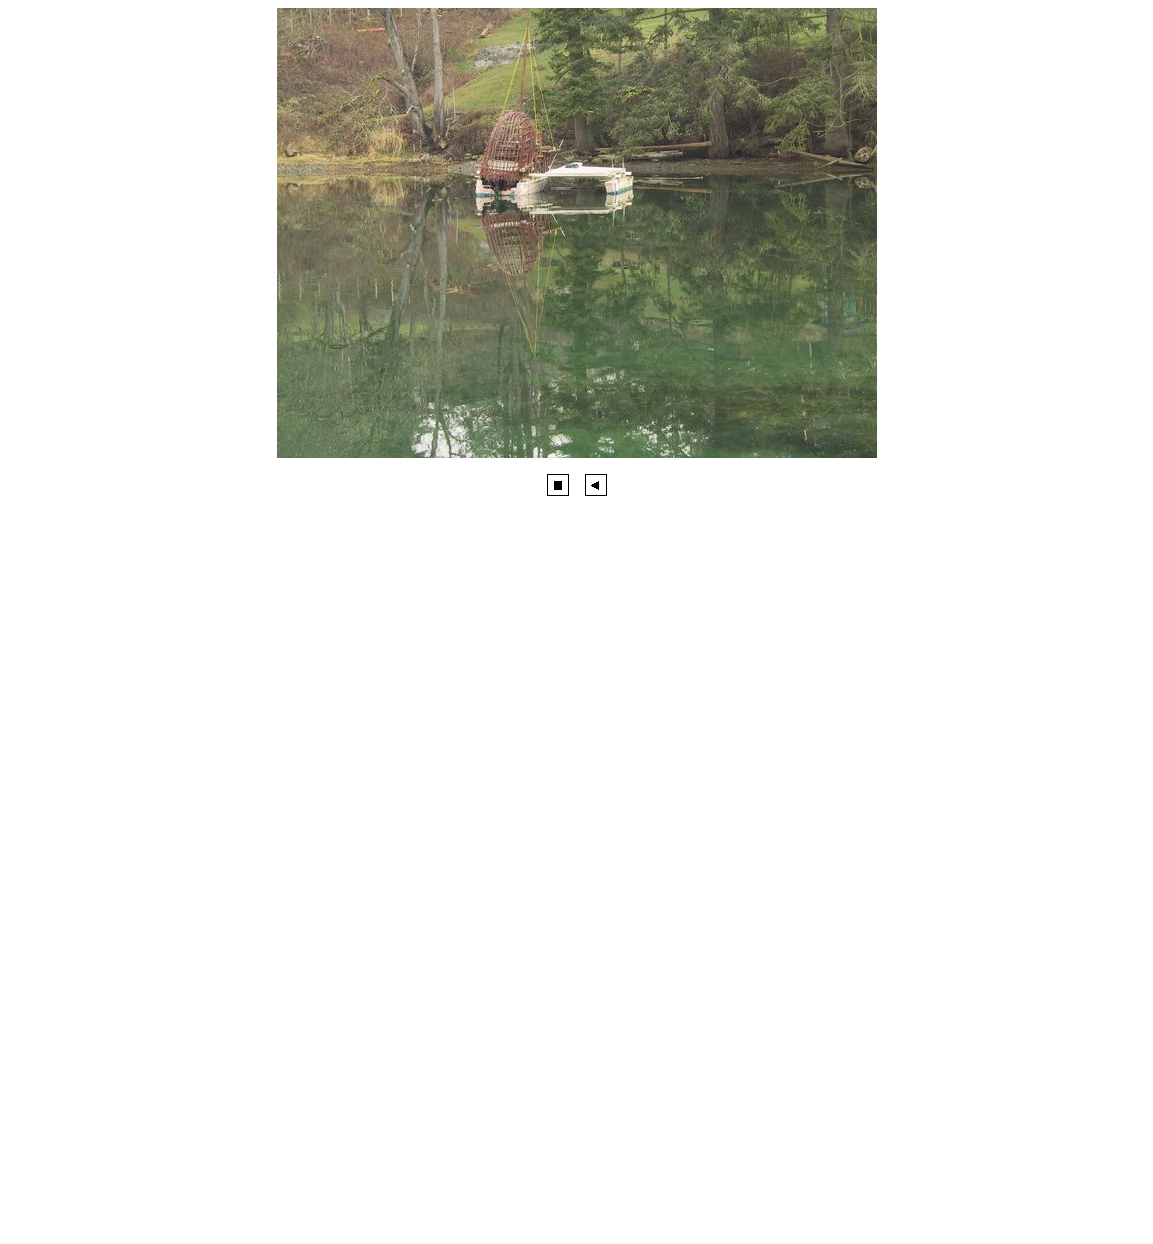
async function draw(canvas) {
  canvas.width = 1153
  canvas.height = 1244
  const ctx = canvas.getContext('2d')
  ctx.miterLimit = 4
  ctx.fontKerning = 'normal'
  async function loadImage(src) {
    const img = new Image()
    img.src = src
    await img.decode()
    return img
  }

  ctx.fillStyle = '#fff'
  ctx.fillRect(0, 0, 1153, 1244)
  ctx.drawImage(await loadImage('image0.png'), 277, 8, 600, 450)
  ctx.drawImage(await loadImage('image1.png'), 547, 474, 22, 22)
  ctx.drawImage(await loadImage('image2.png'), 585, 474, 22, 22)
}

draw(document.querySelector('canvas'))
